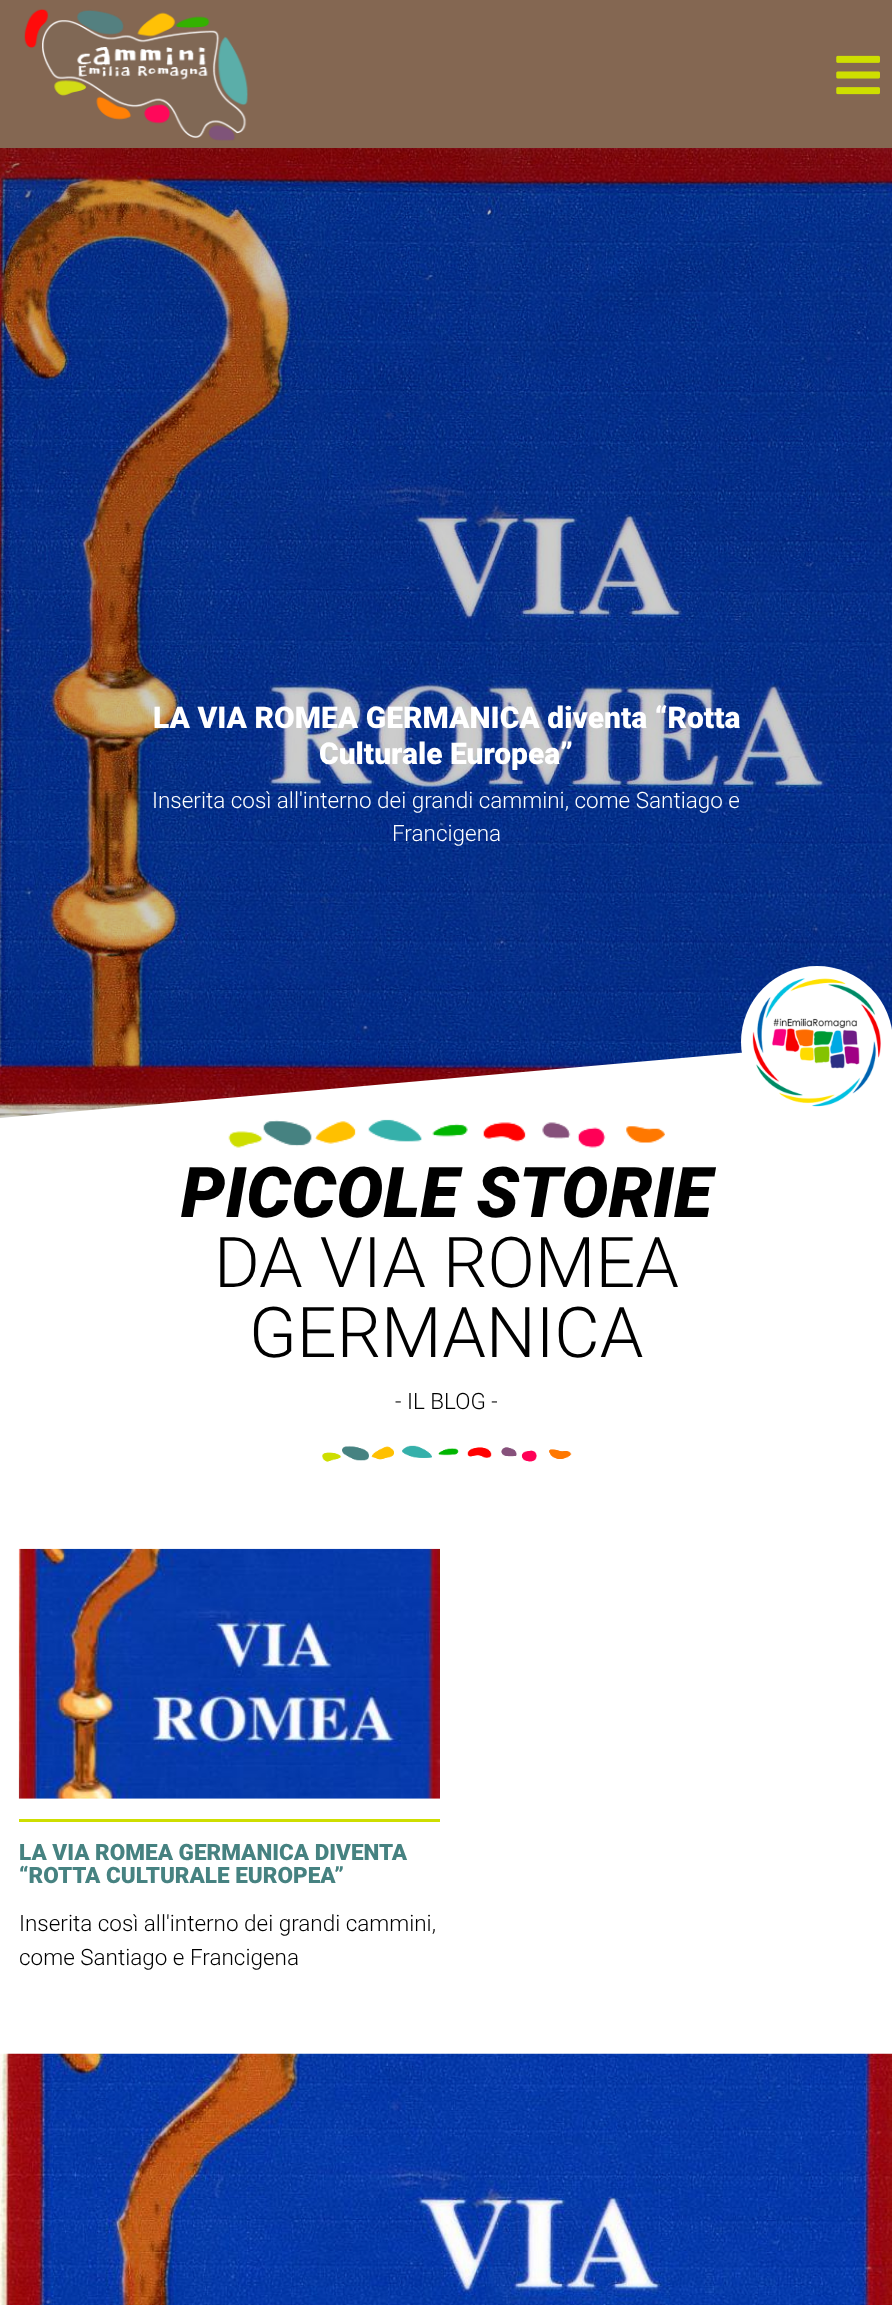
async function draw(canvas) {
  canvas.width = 892
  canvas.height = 2305
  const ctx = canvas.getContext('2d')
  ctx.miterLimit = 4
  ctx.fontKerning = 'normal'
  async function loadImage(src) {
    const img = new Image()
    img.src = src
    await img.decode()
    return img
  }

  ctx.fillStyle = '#fff'
  ctx.fillRect(0, 0, 892, 2305)
  ctx.fillStyle = '#ccc'
  ctx.fillRect(0, 1117, 12, 1)
  ctx.fillStyle = '#846752'
  ctx.fillRect(0, 0, 892, 148)
  ctx.drawImage(await loadImage('image0.png'), 24, 9, 224, 132)
  ctx.drawImage(await loadImage('image1.png'), 836, 55, 44, 40)
  ctx.drawImage(await loadImage('image2.png'), 0, 148, 892, 970)
  ctx.font = '900 30px Roboto'
  ctx.fillStyle = '#fff'
  ctx.fillText('LA VIA ROMEA GERMANICA diventa “Rotta', 153, 728)
  ctx.fillText('Culturale Europea”', 319, 764)
  ctx.font = '300 22.5px Roboto'
  ctx.fillText('Inserita così all\'interno dei grandi cammini, come Santiago e', 152, 808)
  ctx.fillText('Francigena', 392, 841)
  ctx.save()
  ctx.beginPath()
  ctx.rect(0, 148, 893, 970)
  ctx.clip()
  ctx.beginPath()
  ctx.moveTo(0, 1118)
  ctx.lineTo(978, 1032)
  ctx.lineTo(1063, 1999)
  ctx.lineTo(85, 2084)
  ctx.closePath()
  ctx.fill()
  ctx.restore()
  ctx.beginPath()
  ctx.arc(817, 1042, 76, 0, 2 * Math.PI)
  ctx.fill()
  ctx.drawImage(await loadImage('image3.png'), 752, 978, 129, 129)
  ctx.drawImage(await loadImage('image4.png'), 228, 1119, 437, 29)
  ctx.font = 'italic 900 70px Roboto'
  ctx.fillStyle = '#000'
  ctx.fillText('PICCOLE STORIE', 181, 1217)
  ctx.font = '300 70px Roboto'
  ctx.fillText('DA VIA ROMEA', 214, 1287)
  ctx.fillText('GERMANICA', 249, 1357)
  ctx.font = '300 22.5px Roboto'
  ctx.fillText('- IL BLOG -', 395, 1409)
  ctx.drawImage(await loadImage('image5.png'), 322, 1445, 250, 17)
  ctx.drawImage(await loadImage('image6.png'), 18, 1548, 422, 251)
  ctx.fillStyle = '#cede00'
  ctx.fillRect(19, 1819, 421, 3)
  ctx.font = '900 22.5px Roboto'
  ctx.fillStyle = '#468281'
  ctx.fillText('LA VIA ROMEA GERMANICA DIVENTA', 19, 1860)
  ctx.fillText('“ROTTA CULTURALE EUROPEA”', 19, 1883)
  ctx.font = '300 22.5px Roboto'
  ctx.fillStyle = '#000'
  ctx.fillText('Inserita così all\'interno dei grandi cammini,', 19, 1931)
  ctx.fillText('come Santiago e Francigena', 19, 1965)
  ctx.drawImage(await loadImage('image7.png'), 0, 2053, 892, 252)
}

draw(document.querySelector('canvas'))
